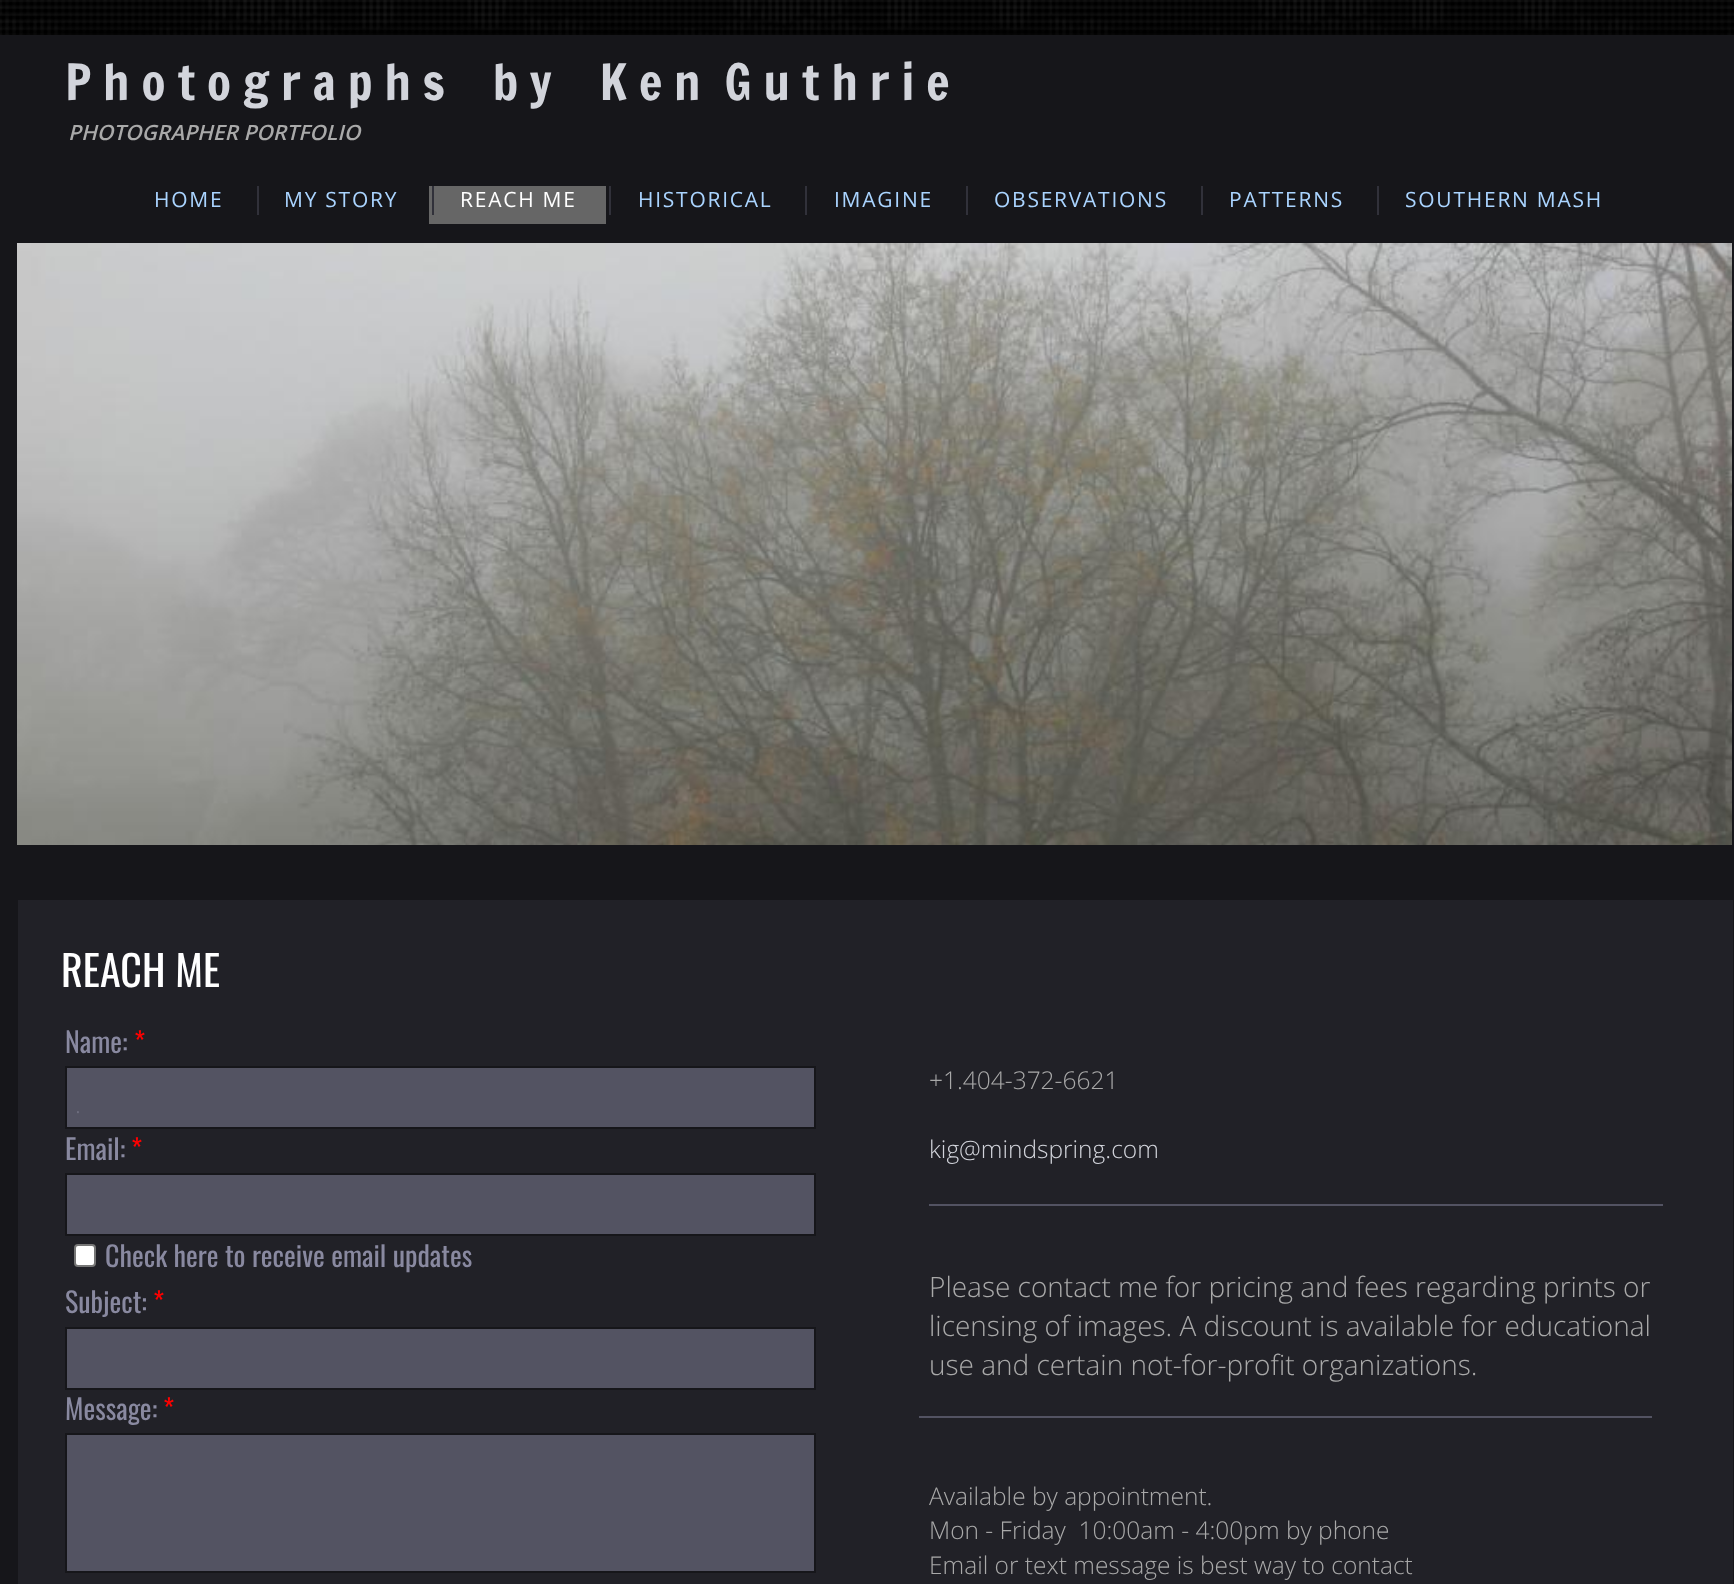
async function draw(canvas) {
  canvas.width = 1734
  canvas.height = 1584
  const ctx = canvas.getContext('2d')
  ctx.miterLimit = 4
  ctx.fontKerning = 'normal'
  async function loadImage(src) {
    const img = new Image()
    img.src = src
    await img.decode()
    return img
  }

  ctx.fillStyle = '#fff'
  ctx.fillRect(0, 0, 1734, 1584)
  ctx.drawImage(await loadImage('image0.png'), 0, 0, 1734, 35)
  ctx.fillStyle = '#000'
  ctx.filter = 'blur(11.5px)'
  ctx.beginPath()
  ctx.rect(0, 35, 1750, 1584)
  ctx.fill()
  ctx.filter = 'none'
  ctx.fillStyle = '#16161a'
  ctx.fillRect(0, 35, 1734, 1549)
  ctx.font = '49px Francois One'
  ctx.fillStyle = '#d2d4db'
  ctx.fillText('P h o t o g r a p h s    b y    K e n  G u t h r i e', 65, 100)
  ctx.font = 'italic 600 21px Open Sans'
  ctx.fillStyle = '#a9a9a9'
  ctx.fillText('PHOTOGRAPHER PORTFOLIO', 68, 140)
  ctx.letterSpacing = '1.75px'
  ctx.font = '21px Open Sans'
  ctx.fillStyle = '#aad4ff'
  ctx.fillText('HOME', 154, 207)
  ctx.fillStyle = '#31313a'
  ctx.fillRect(257, 186, 2, 29)
  ctx.fillStyle = '#aad4ff'
  ctx.fillText('MY STORY', 284, 207)
  ctx.fillStyle = '#666'
  ctx.fillRect(429, 186, 177, 38)
  ctx.fillStyle = '#31313a'
  ctx.fillRect(432, 186, 2, 29)
  ctx.fillStyle = '#fff'
  ctx.fillText('REACH ME', 460, 207)
  ctx.fillStyle = '#31313a'
  ctx.fillRect(609, 186, 2, 29)
  ctx.fillStyle = '#aad4ff'
  ctx.fillText('HISTORICAL', 638, 207)
  ctx.fillStyle = '#31313a'
  ctx.fillRect(805, 186, 2, 29)
  ctx.fillStyle = '#aad4ff'
  ctx.fillText('IMAGINE', 834, 207)
  ctx.fillStyle = '#31313a'
  ctx.fillRect(966, 186, 2, 29)
  ctx.fillStyle = '#aad4ff'
  ctx.fillText('OBSERVATIONS', 994, 207)
  ctx.fillStyle = '#31313a'
  ctx.fillRect(1201, 186, 2, 29)
  ctx.fillStyle = '#aad4ff'
  ctx.fillText('PATTERNS', 1229, 207)
  ctx.fillStyle = '#31313a'
  ctx.fillRect(1377, 186, 2, 29)
  ctx.fillStyle = '#aad4ff'
  ctx.fillText('SOUTHERN MASH', 1405, 207)
  ctx.drawImage(await loadImage('image1.png'), 17, 243, 1715, 602)
  ctx.fillStyle = '#212127'
  ctx.fillRect(18, 900, 1715, 684)
  ctx.letterSpacing = '0px'
  ctx.font = '42px Oswald'
  ctx.fillStyle = '#fff'
  ctx.fillText('REACH ME', 61, 987)
  ctx.font = '28px Oswald'
  ctx.fillStyle = '#8989a0'
  ctx.fillText('Name:', 65, 1053)
  ctx.fillStyle = '#f00'
  ctx.fillText('*', 134, 1053)
  ctx.fillStyle = '#535362'
  ctx.beginPath()
  ctx.rect(66, 1067, 749, 61)
  ctx.fill()
  ctx.strokeStyle = '#16161a'
  ctx.lineWidth = 2
  ctx.stroke()
  ctx.fillStyle = '#8989a0'
  ctx.fillText('Email:', 65, 1160)
  ctx.fillStyle = '#f00'
  ctx.fillText('*', 131, 1160)
  ctx.fillStyle = '#535362'
  ctx.beginPath()
  ctx.rect(66, 1174, 749, 61)
  ctx.fill()
  ctx.stroke()
  ctx.fillStyle = '#fff'
  ctx.beginPath()
  ctx.roundRect(75, 1245, 20, 21, 3)
  ctx.fill()
  ctx.strokeStyle = '#767676'
  ctx.stroke()
  ctx.fillStyle = '#8989a0'
  ctx.fillText('Check here to receive email updates', 105, 1267)
  ctx.fillText('Subject:', 65, 1313)
  ctx.fillStyle = '#f00'
  ctx.fillText('*', 153, 1313)
  ctx.fillStyle = '#535362'
  ctx.beginPath()
  ctx.rect(66, 1328, 749, 61)
  ctx.fill()
  ctx.strokeStyle = '#16161a'
  ctx.stroke()
  ctx.fillStyle = '#8989a0'
  ctx.fillText('Message:', 65, 1420)
  ctx.fillStyle = '#f00'
  ctx.fillText('*', 163, 1420)
  ctx.fillStyle = '#535362'
  ctx.beginPath()
  ctx.rect(66, 1434, 749, 138)
  ctx.fill()
  ctx.stroke()
  ctx.font = '300 24.5px Open Sans'
  ctx.fillStyle = '#a9a9a9'
  ctx.fillText('+1.404-372-6621', 929, 1089)
  ctx.fillStyle = '#d2d4db'
  ctx.fillText('kig@mindspring.com', 929, 1158)
  ctx.fillStyle = '#6f6f7f'
  ctx.fillText('.', 75, 1113)
  ctx.fillStyle = '#535362'
  ctx.fillRect(929, 1204, 734, 2)
  ctx.font = '300 28px Open Sans'
  ctx.fillStyle = '#a9a9a9'
  ctx.fillText('Please contact me for pricing and fees regarding prints or', 929, 1297)
  ctx.fillText('licensing of images. A discount is available for educational', 929, 1336)
  ctx.fillText('use and certain not-for-profit organizations.', 929, 1375)
  ctx.fillStyle = '#535362'
  ctx.fillRect(919, 1416, 733, 2)
  ctx.font = '300 24.5px Open Sans'
  ctx.fillStyle = '#a9a9a9'
  ctx.fillText('Available by appointment.', 929, 1505)
  ctx.fillText('Mon - Friday  10:00am - 4:00pm by phone', 929, 1539)
  ctx.fillText('Email or text message is best way to contact', 929, 1574)
}

draw(document.querySelector('canvas'))
